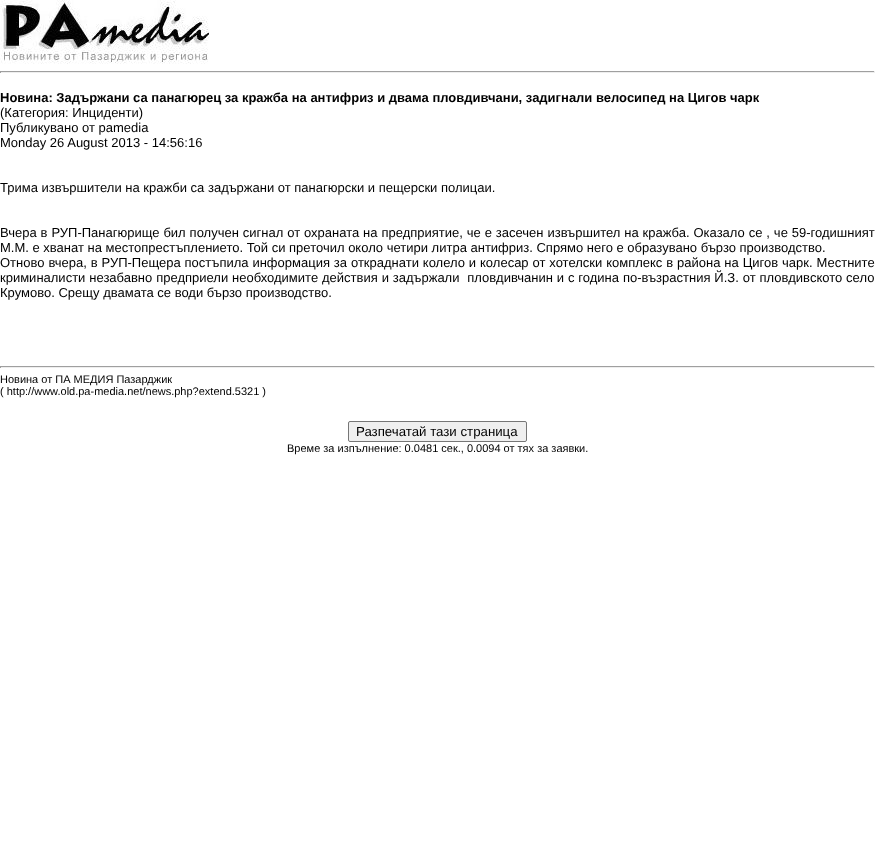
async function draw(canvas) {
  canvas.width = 875
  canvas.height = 845
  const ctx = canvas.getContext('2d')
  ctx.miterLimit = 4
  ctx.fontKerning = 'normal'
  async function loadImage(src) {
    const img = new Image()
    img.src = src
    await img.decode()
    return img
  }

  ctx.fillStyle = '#fff'
  ctx.fillRect(0, 0, 875, 845)
  ctx.drawImage(await loadImage('image0.png'), 0, 0, 210, 64)
  ctx.fillStyle = '#9f9f9f'
  ctx.fillRect(0, 71, 875, 1)
  ctx.fillStyle = '#eee'
  ctx.fillRect(874, 71, 1, 2)
  ctx.fillRect(0, 72, 875, 1)
  ctx.fillStyle = '#9f9f9f'
  ctx.fillRect(0, 71, 1, 2)
  ctx.font = 'bold 13px Liberation Sans'
  ctx.fillStyle = '#000'
  ctx.fillText('Новина: Задържани са панагюрец за кражба на антифриз и двама пловдивчани, задигнали велосипед на Цигов чарк', 0, 102)
  ctx.font = '13px Liberation Sans'
  ctx.fillText('(Категория: Инциденти)', 0, 117)
  ctx.fillText('Публикувано от pamedia', 0, 132)
  ctx.fillText('Monday 26 August 2013 - 14:56:16', 0, 147)
  ctx.fillText('Трима извършители на кражби са задържани от панагюрски и пещерски полицаи.', 0, 192)
  ctx.wordSpacing = '0.3px'
  ctx.fillText('Вчера в РУП-Панагюрище бил получен сигнал от охраната на предприятие, че е засечен извършител на кражба. Оказало се , че 59-годишният', 0, 237)
  ctx.wordSpacing = '0px'
  ctx.fillText('М.М. е хванат на местопрестъплението. Той си преточил около четири литра антифриз. Спрямо него е образувано бързо производство.', 0, 252)
  ctx.wordSpacing = '0.3px'
  ctx.fillText('Отново вчера, в РУП-Пещера постъпила информация за откраднати колело и колесар от хотелски комплекс в района на Цигов чарк. Местните', 0, 267)
  ctx.fillText('криминалисти незабавно предприели необходимите действия и задържали  пловдивчанин и с година по-възрастния Й.З. от пловдивското село', 0, 282)
  ctx.wordSpacing = '0px'
  ctx.fillText('Крумово. Срещу двамата се води бързо производство.', 0, 297)
  ctx.fillStyle = '#9f9f9f'
  ctx.fillRect(0, 366, 875, 1)
  ctx.fillStyle = '#eee'
  ctx.fillRect(874, 366, 1, 2)
  ctx.fillRect(0, 367, 875, 1)
  ctx.fillStyle = '#9f9f9f'
  ctx.fillRect(0, 366, 1, 2)
  ctx.font = '11px Liberation Sans'
  ctx.fillStyle = '#000'
  ctx.fillText('Новина от ПА МЕДИЯ Пазарджик', 0, 383)
  ctx.fillText('( http://www.old.pa-media.net/news.php?extend.5321 )', 0, 395)
  ctx.fillStyle = '#efefef'
  ctx.beginPath()
  ctx.roundRect(348.5, 421.5, 178, 20, 1.5)
  ctx.fill()
  ctx.strokeStyle = '#767676'
  ctx.stroke()
  ctx.font = '13.25px Liberation Sans'
  ctx.fillStyle = '#000'
  ctx.fillText('Разпечатай тази страница', 356, 436)
  ctx.font = '11px Liberation Sans'
  ctx.fillText('Време за изпълнение: 0.0481 сек., 0.0094 от тях за заявки.', 287, 452)
}

draw(document.querySelector('canvas'))
